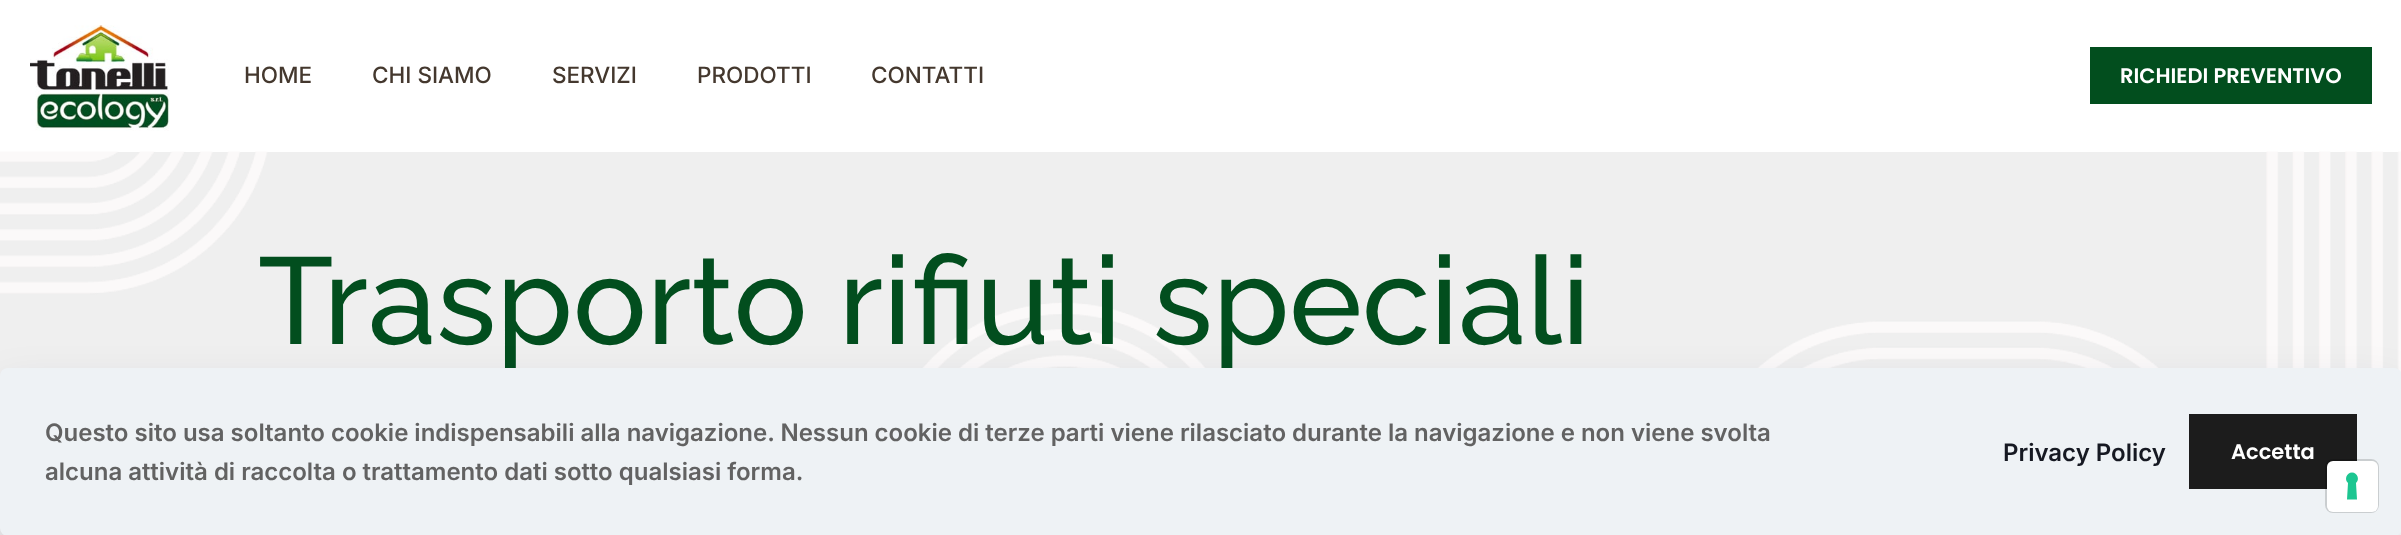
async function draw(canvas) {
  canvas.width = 2401
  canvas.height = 535
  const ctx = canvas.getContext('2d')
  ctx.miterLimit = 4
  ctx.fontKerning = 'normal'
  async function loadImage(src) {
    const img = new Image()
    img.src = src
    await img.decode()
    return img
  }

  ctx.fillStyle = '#fff'
  ctx.fillRect(0, 0, 2401, 535)
  ctx.drawImage(await loadImage('image0.png'), 30, 25, 140, 106)
  ctx.font = '500 22.5px Inter'
  ctx.fillStyle = '#44382e'
  ctx.fillText('HOME', 244, 83)
  ctx.fillText('CHI SIAMO', 372, 83)
  ctx.fillText('SERVIZI', 552, 83)
  ctx.fillText('PRODOTTI', 697, 83)
  ctx.fillText('CONTATTI', 871, 83)
  ctx.fillStyle = '#024e1e'
  ctx.fillRect(2090, 47, 282, 57)
  ctx.font = '600 21px Poppins'
  ctx.fillStyle = '#fff'
  ctx.fillText('RICHIEDI PREVENTIVO', 2120, 83)
  ctx.fillStyle = '#efefef'
  ctx.fillRect(0, 152, 2400, 383)
  ctx.drawImage(await loadImage('image1.png'), 0, 151, 2401, 384)
  ctx.font = '500 123px Raleway'
  ctx.fillStyle = '#024e1e'
  ctx.fillText('Trasporto rifiuti speciali', 258, 344)
  ctx.fillStyle = '#01072721'
  ctx.filter = 'blur(22.5px)'
  ctx.beginPath()
  ctx.roundRect(0, 390, 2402, 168, 8)
  ctx.fill()
  ctx.filter = 'none'
  ctx.fillStyle = '#eef2f5'
  ctx.beginPath()
  ctx.roundRect(0, 368, 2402, 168, 8)
  ctx.fill()
  ctx.font = '600 24px Inter'
  ctx.fillStyle = '#626262'
  ctx.fillText('Questo sito usa soltanto cookie indispensabili alla navigazione. Nessun cookie di terze parti viene rilasciato durante la navigazione e non viene svolta', 45, 441)
  ctx.fillText('alcuna attività di raccolta o trattamento dati sotto qualsiasi forma.', 45, 480)
  ctx.fillStyle = '#161922'
  ctx.fillText('Privacy Policy', 2003, 461)
  ctx.fillStyle = '#1c1c1c'
  ctx.fillRect(2189, 414, 168, 75)
  ctx.font = '600 21px Poppins'
  ctx.fillStyle = '#fff'
  ctx.fillText('Accetta', 2231, 459)
  ctx.beginPath()
  ctx.roundRect(2326, 460, 52, 52, 7)
  ctx.strokeStyle = '#00000026'
  ctx.lineWidth = 2
  ctx.stroke()
  ctx.beginPath()
  ctx.roundRect(2327, 461, 51, 51, 6)
  ctx.fill()
  ctx.fillStyle = '#1cc691'
  ctx.beginPath()
  ctx.moveTo(2352, 472.5)
  ctx.bezierCurveTo(2357.5, 472.5, 2360, 479.5, 2356, 483)
  ctx.lineTo(2357, 499.5)
  ctx.lineTo(2347, 499.5)
  ctx.lineTo(2348, 483)
  ctx.bezierCurveTo(2344, 479.5, 2346.5, 472.5, 2352, 472.5)
  ctx.closePath()
  ctx.fill('evenodd')
}

draw(document.querySelector('canvas'))
